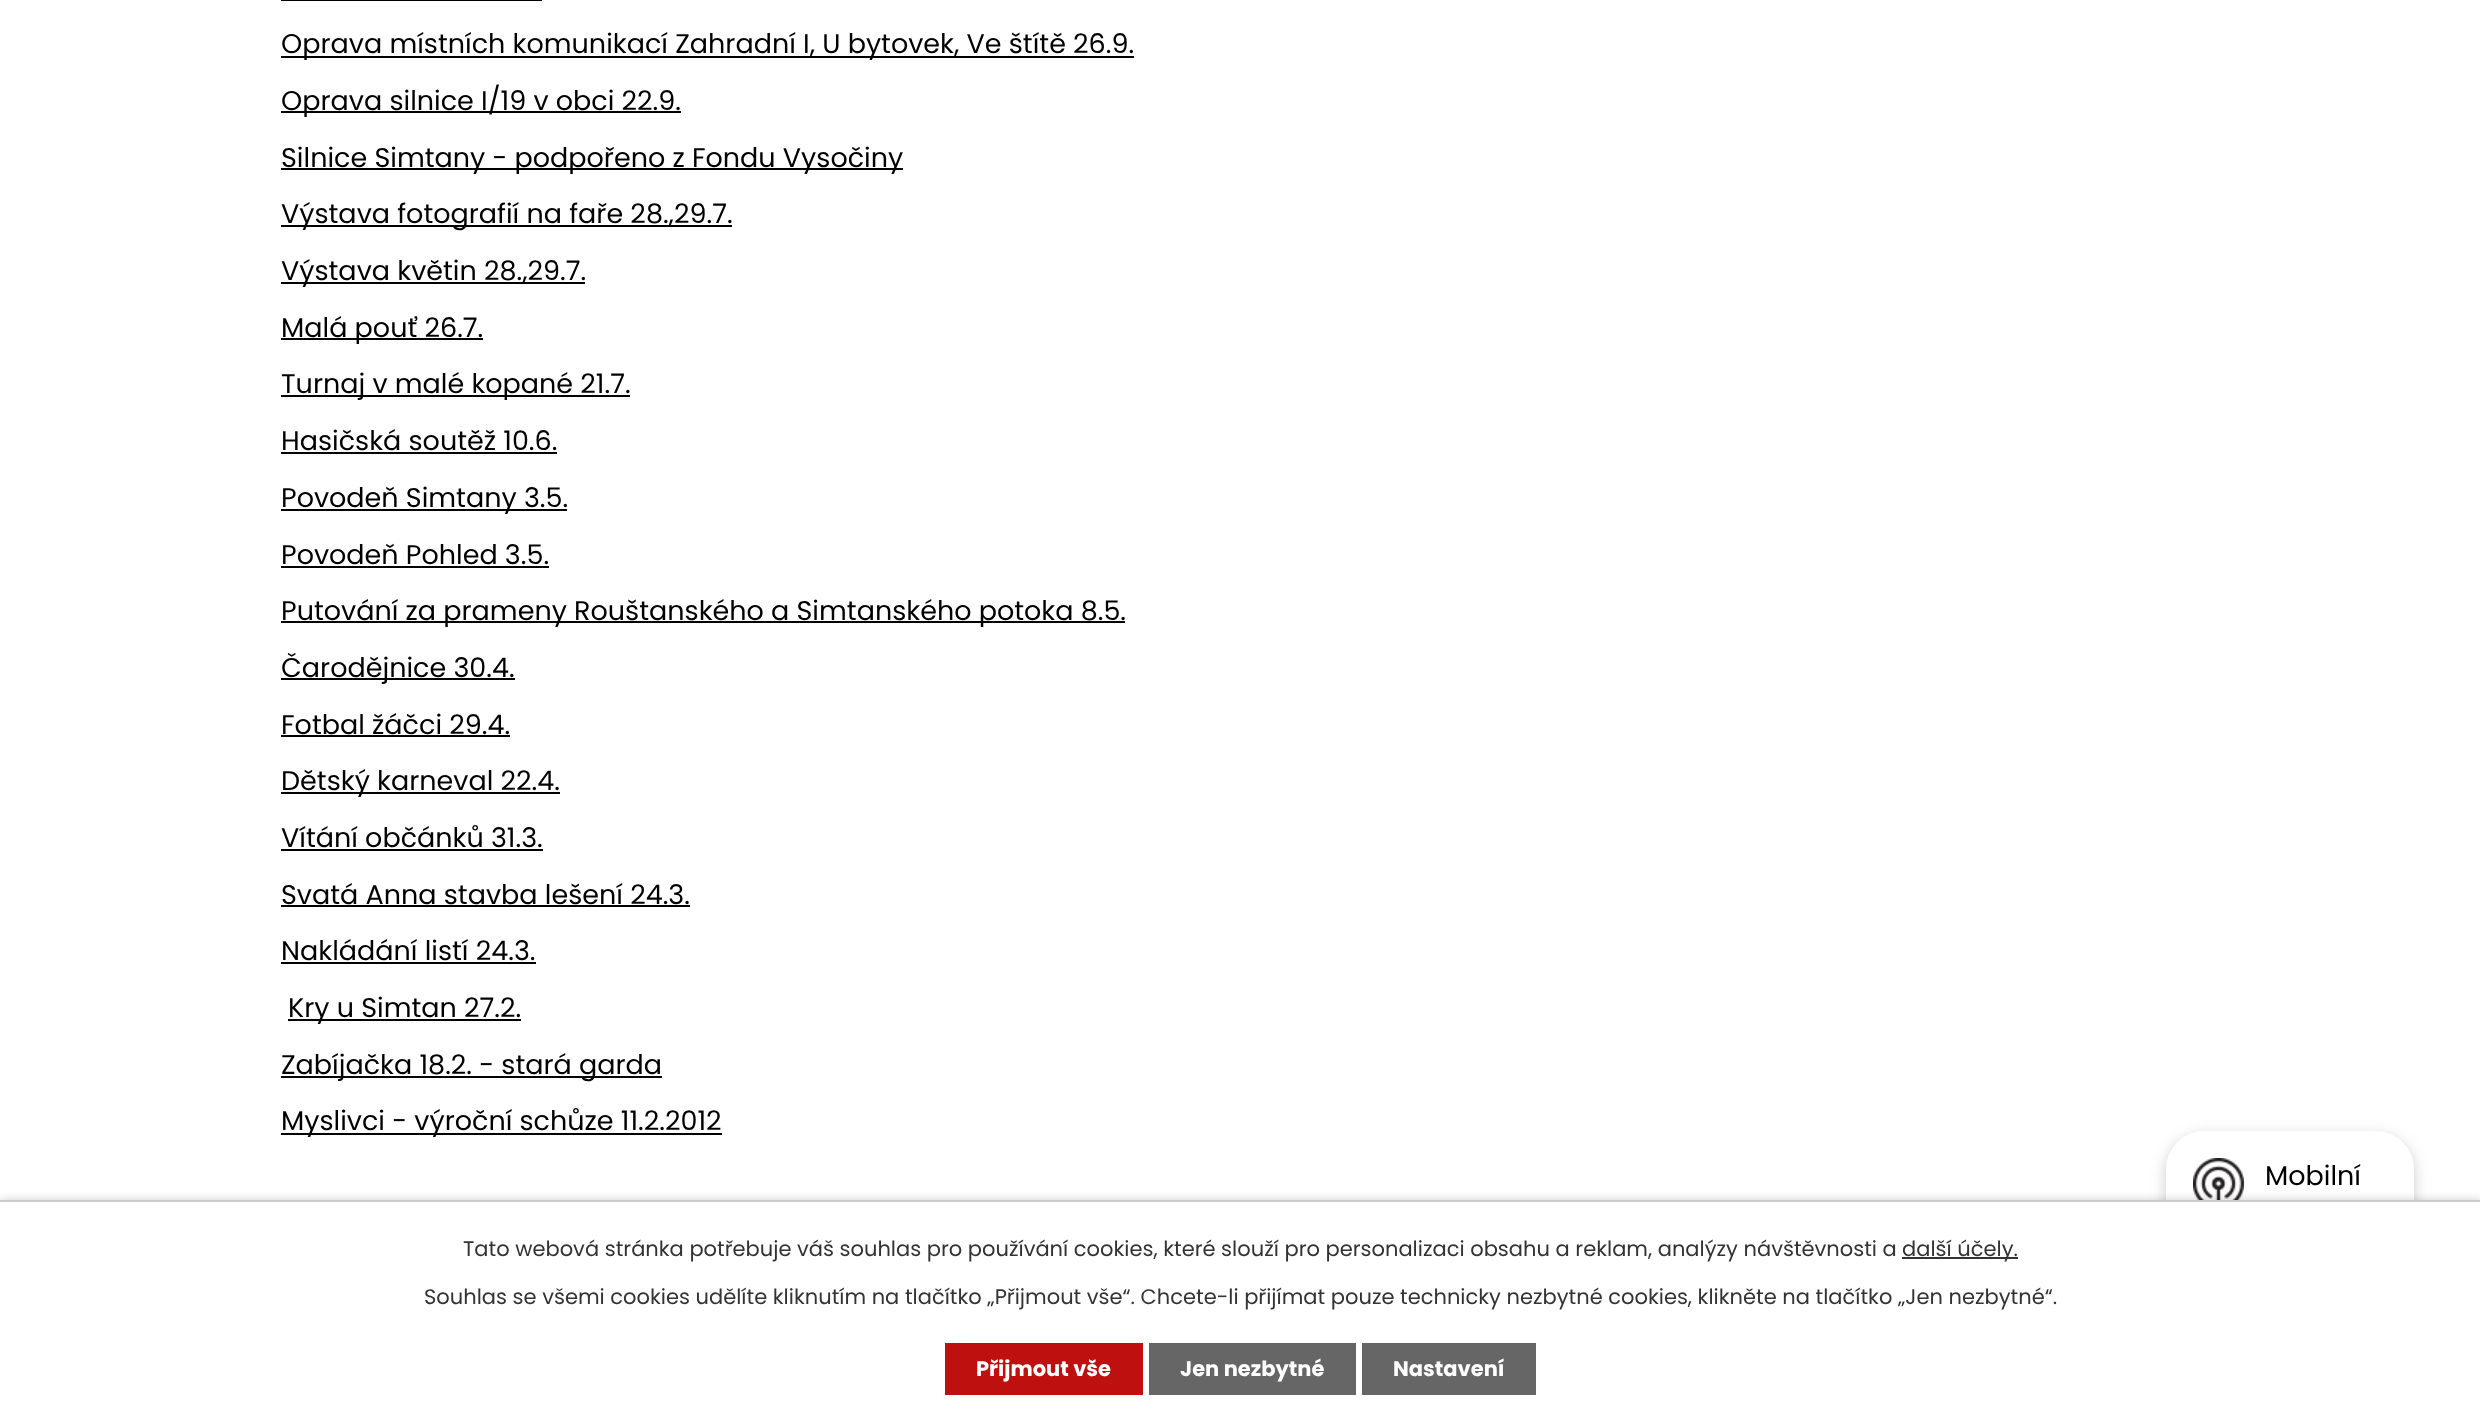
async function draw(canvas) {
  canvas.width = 2480
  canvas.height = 1423
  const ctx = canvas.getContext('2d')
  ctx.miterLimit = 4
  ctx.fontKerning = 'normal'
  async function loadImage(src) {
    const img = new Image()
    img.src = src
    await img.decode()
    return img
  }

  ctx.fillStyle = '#fff'
  ctx.fillRect(0, 0, 2480, 1423)
  ctx.fillStyle = '#000'
  ctx.fillRect(281, 0, 261, 1)
  ctx.fillRect(281, 56, 853, 2)
  ctx.font = '27px Poppins'
  ctx.fillText('Oprava místních komunikací Zahradní I, U bytovek, Ve štítě 26.9.', 281, 53)
  ctx.fillRect(281, 111, 400, 2)
  ctx.fillText('Oprava silnice I/19 v obci 22.9.', 281, 110)
  ctx.fillRect(281, 168, 622, 2)
  ctx.fillText('Silnice Simtany - podpořeno z Fondu Vysočiny', 281, 167)
  ctx.fillRect(281, 225, 451, 2)
  ctx.fillText('Výstava fotografií na faře 28.,29.7.', 281, 223)
  ctx.fillRect(281, 282, 304, 2)
  ctx.fillText('Výstava květin 28.,29.7.', 281, 280)
  ctx.fillRect(281, 338, 202, 2)
  ctx.fillText('Malá pouť 26.7.', 281, 337)
  ctx.fillRect(281, 395, 349, 2)
  ctx.fillText('Turnaj v malé kopané 21.7.', 281, 393)
  ctx.fillText('Hasičská soutěž 10.6.', 281, 450)
  ctx.fillRect(281, 452, 276, 2)
  ctx.fillRect(281, 509, 286, 2)
  ctx.fillText('Povodeň Simtany 3.5.', 281, 507)
  ctx.fillText('Povodeň Pohled 3.5.', 281, 564)
  ctx.fillRect(281, 566, 268, 2)
  ctx.fillRect(281, 621, 844, 2)
  ctx.fillText('Putování za prameny Rouštanského a Simtanského potoka 8.5.', 281, 620)
  ctx.fillRect(281, 678, 234, 2)
  ctx.fillText('Čarodějnice 30.4.', 281, 677)
  ctx.fillText('Fotbal žáčci 29.4.', 281, 734)
  ctx.fillRect(281, 735, 229, 2)
  ctx.fillRect(281, 792, 279, 2)
  ctx.fillText('Dětský karneval 22.4.', 281, 790)
  ctx.fillText('Vítání občánků 31.3.', 281, 847)
  ctx.fillRect(281, 849, 262, 2)
  ctx.fillText('Svatá Anna stavba lešení 24.3.', 281, 904)
  ctx.fillRect(281, 905, 409, 2)
  ctx.fillText('Nakládání listí 24.3.', 281, 960)
  ctx.fillRect(281, 962, 255, 2)
  ctx.fillRect(288, 1019, 233, 2)
  ctx.fillText('Kry u Simtan 27.2.', 288, 1017)
  ctx.fillRect(281, 1076, 381, 2)
  ctx.fillText('Zabíjačka 18.2. - stará garda', 281, 1074)
  ctx.fillRect(281, 1133, 441, 2)
  ctx.fillText('Myslivci - výroční schůze 11.2.2012', 281, 1130)
  ctx.fillStyle = '#00000033'
  ctx.filter = 'blur(7.5px)'
  ctx.beginPath()
  ctx.roundRect(2166, 1136, 248, 225, 38)
  ctx.fill()
  ctx.filter = 'none'
  ctx.fillStyle = '#fff'
  ctx.beginPath()
  ctx.roundRect(2166, 1131, 248, 225, 38)
  ctx.fill()
  ctx.drawImage(await loadImage('image0.png'), 2193, 1158, 51, 42)
  ctx.fillStyle = '#000'
  ctx.fillText('Mobilní', 2265, 1185)
  ctx.fillStyle = '#00000033'
  ctx.filter = 'blur(4px)'
  ctx.beginPath()
  ctx.rect(0, 1200, 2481, 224)
  ctx.fill()
  ctx.filter = 'none'
  ctx.fillStyle = '#fff'
  ctx.fillRect(0, 1202, 2480, 221)
  ctx.fillStyle = '#ccc'
  ctx.fillRect(0, 1200, 2480, 2)
  ctx.font = '21px Poppins'
  ctx.fillStyle = '#333'
  ctx.fillText('Tato webová stránka potřebuje váš souhlas pro používání cookies, které slouží pro personalizaci obsahu a reklam, analýzy návštěvnosti a', 463, 1256)
  ctx.fillRect(1902, 1257, 116, 2)
  ctx.fillText('další účely.', 1902, 1256)
  ctx.fillText('Souhlas se všemi cookies udělíte kliknutím na tlačítko „Přijmout vše“. Chcete-li přijímat pouze technicky nezbytné cookies, klikněte na tlačítko „Jen nezbytné“.', 424, 1304)
  ctx.fillStyle = '#bf1010'
  ctx.fillRect(945, 1343, 198, 52)
  ctx.font = 'bold 21px Poppins'
  ctx.fillStyle = '#fff'
  ctx.fillText('Přijmout vše', 976, 1376)
  ctx.fillStyle = '#666'
  ctx.fillRect(1149, 1343, 207, 52)
  ctx.fillStyle = '#fff'
  ctx.fillText('Jen nezbytné', 1180, 1376)
  ctx.fillStyle = '#666'
  ctx.fillRect(1362, 1343, 174, 52)
  ctx.fillStyle = '#fff'
  ctx.fillText('Nastavení', 1393, 1376)
}

draw(document.querySelector('canvas'))
